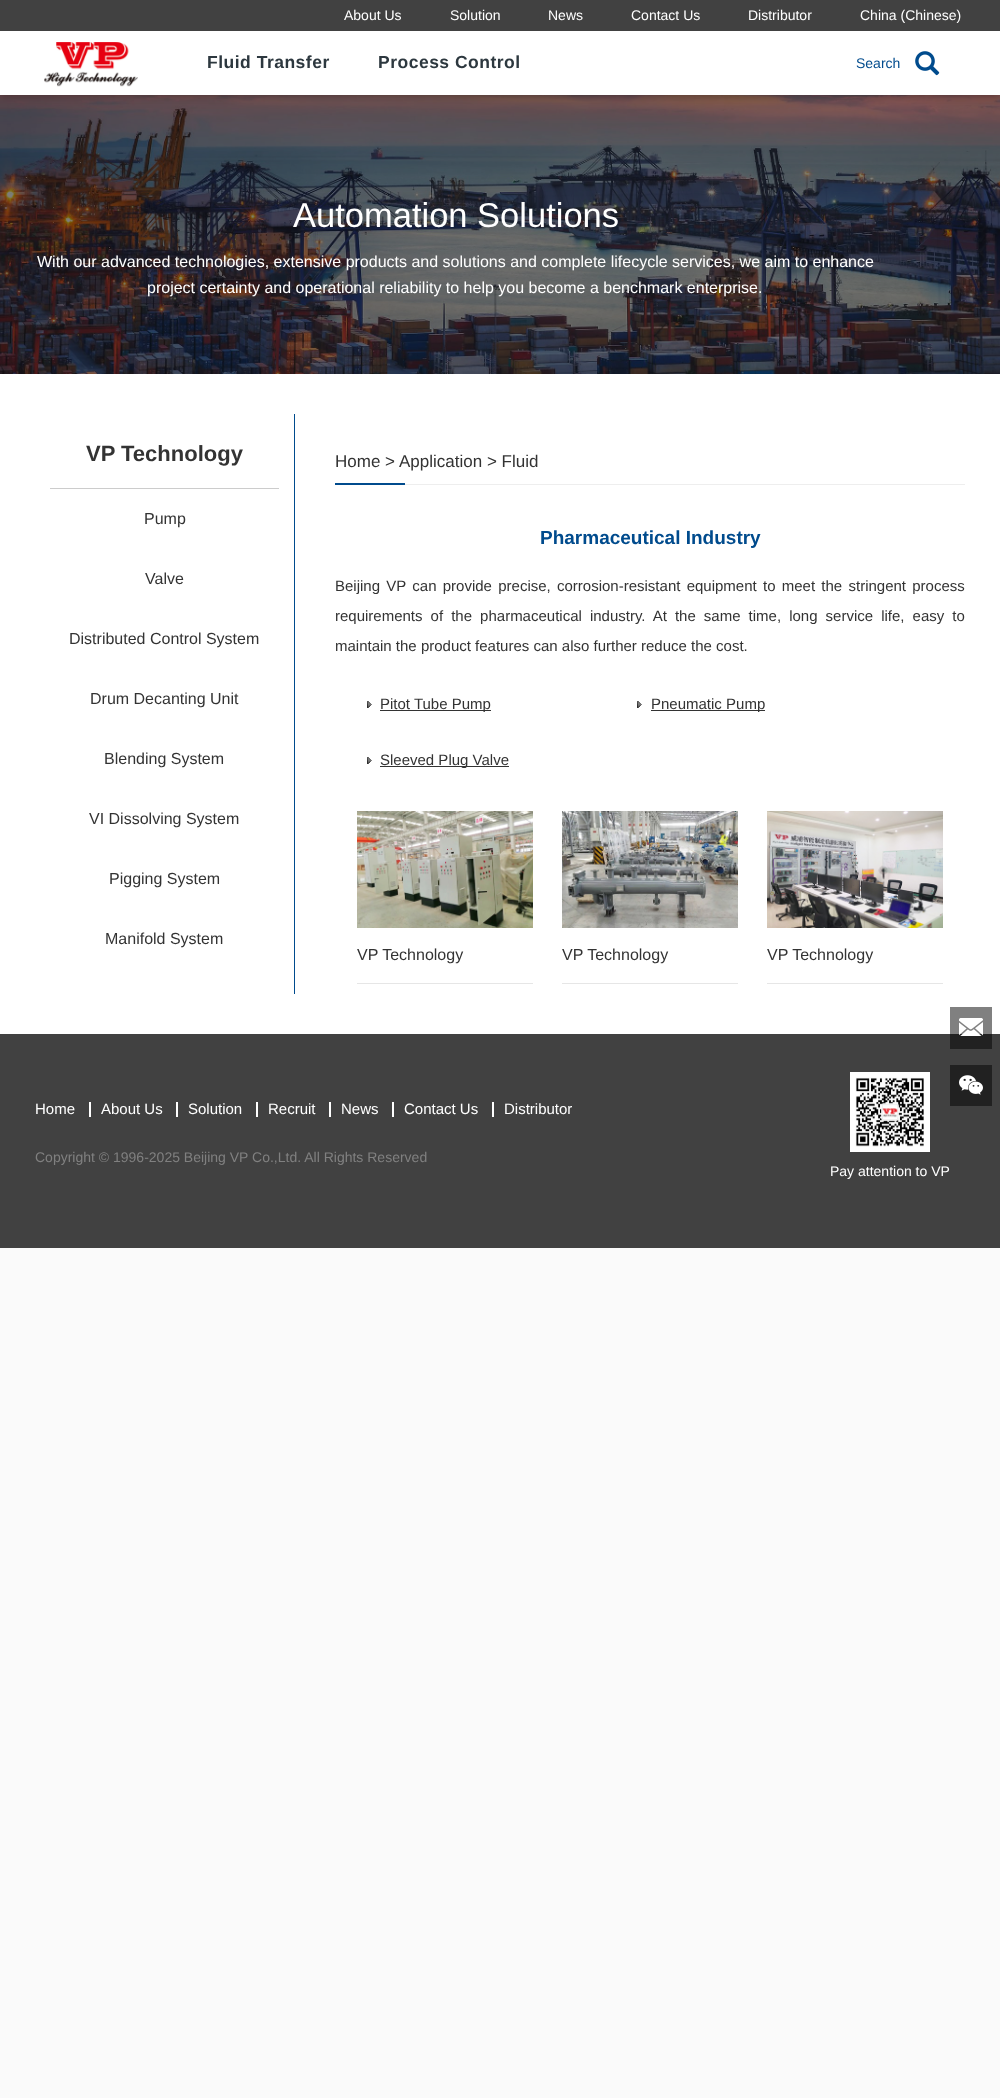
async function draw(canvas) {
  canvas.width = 1000
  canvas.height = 2098
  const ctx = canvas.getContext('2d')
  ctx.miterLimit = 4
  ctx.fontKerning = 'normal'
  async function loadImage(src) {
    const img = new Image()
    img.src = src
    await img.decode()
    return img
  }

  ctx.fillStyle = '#fafafa'
  ctx.fillRect(0, 0, 1000, 2098)
  ctx.drawImage(await loadImage('image2.png'), 0, 95, 1000, 279)
  ctx.fillStyle = '#0000004d'
  ctx.filter = 'blur(3.5px)'
  ctx.beginPath()
  ctx.rect(0, 1, 1000, 95)
  ctx.fill()
  ctx.filter = 'none'
  ctx.fillStyle = '#fff'
  ctx.fillRect(0, 31, 1000, 64)
  ctx.fillStyle = '#414141'
  ctx.fillRect(0, 0, 1000, 31)
  ctx.font = '14px Liberation Sans'
  ctx.fillStyle = '#fff'
  ctx.fillText('About Us', 344, 20)
  ctx.fillText('Solution', 450, 20)
  ctx.fillText('News', 548, 20)
  ctx.fillText('Contact Us', 631, 20)
  ctx.fillText('Distributor', 748, 20)
  ctx.fillText('China (Chinese)', 860, 20)
  ctx.drawImage(await loadImage('image0.png'), 44, 42, 94, 45)
  ctx.letterSpacing = '0.5px'
  ctx.font = 'bold 17.5px Liberation Sans'
  ctx.fillStyle = '#2d383f'
  ctx.fillText('Fluid Transfer', 207, 68)
  ctx.fillText('Process Control', 378, 68)
  ctx.letterSpacing = '0px'
  ctx.font = '14px Liberation Sans'
  ctx.fillStyle = '#004b8d'
  ctx.fillText('Search', 856, 68)
  ctx.drawImage(await loadImage('image1.png'), 915, 51, 25, 25)
  ctx.font = '34.5px Liberation Sans'
  ctx.fillStyle = '#fff'
  ctx.fillText('Automation Solutions', 293, 227)
  ctx.font = '16px Liberation Sans'
  ctx.fillText('With our advanced technologies, extensive products and solutions and complete lifecycle services, we aim to enhance', 37, 267)
  ctx.fillText('project certainty and operational reliability to help you become a benchmark enterprise.', 147, 293)
  ctx.fillRect(0, 374, 1000, 660)
  ctx.fillStyle = '#808080'
  ctx.fillRect(950, 1007, 42, 27)
  ctx.fillStyle = '#004b8d'
  ctx.fillRect(294, 414, 1, 580)
  ctx.font = 'bold 22px Liberation Sans'
  ctx.fillStyle = '#333'
  ctx.fillText('VP Technology', 86, 461)
  ctx.fillStyle = '#ccc'
  ctx.fillRect(50, 488, 229, 1)
  ctx.font = '16px Liberation Sans'
  ctx.fillStyle = '#333'
  ctx.fillText('Pump', 144, 524)
  ctx.fillText('Valve', 145, 584)
  ctx.fillText('Distributed Control System', 69, 644)
  ctx.fillText('Drum Decanting Unit', 90, 704)
  ctx.fillText('Blending System', 104, 764)
  ctx.fillText('VI Dissolving System', 89, 824)
  ctx.fillText('Pigging System', 109, 884)
  ctx.fillText('Manifold System', 105, 944)
  ctx.fillStyle = '#eee'
  ctx.fillRect(405, 484, 560, 1)
  ctx.font = '17px Liberation Sans'
  ctx.fillStyle = '#333'
  ctx.fillText('Home', 335, 467)
  ctx.fillText('>', 385, 467)
  ctx.fillText('Application > Fluid', 399, 467)
  ctx.fillStyle = '#004b8d'
  ctx.fillRect(335, 483, 70, 2)
  ctx.font = 'bold 19px Liberation Sans'
  ctx.fillText('Pharmaceutical Industry', 540, 544)
  ctx.wordSpacing = '2.1px'
  ctx.font = '15px Liberation Sans'
  ctx.fillStyle = '#333'
  ctx.fillText('Beijing VP can provide precise, corrosion-resistant equipment to meet the stringent process', 335, 591)
  ctx.wordSpacing = '3.9px'
  ctx.fillText('requirements of the pharmaceutical industry. At the same time, long service life, easy to', 335, 621)
  ctx.wordSpacing = '0px'
  ctx.fillText('maintain the product features can also further reduce the cost.', 335, 651)
  ctx.drawImage(await loadImage('image3.png'), 367, 701, 5, 7)
  ctx.fillRect(380, 710, 111, 1)
  ctx.fillText('Pitot Tube Pump', 380, 709)
  ctx.drawImage(await loadImage('image3.png'), 637, 701, 5, 7)
  ctx.fillRect(651, 710, 114, 1)
  ctx.fillText('Pneumatic Pump', 651, 709)
  ctx.drawImage(await loadImage('image3.png'), 367, 757, 5, 7)
  ctx.fillRect(380, 766, 129, 1)
  ctx.fillText('Sleeved Plug Valve', 380, 765)
  ctx.drawImage(await loadImage('image4.png'), 357, 811, 176, 117)
  ctx.fillStyle = '#e6e6e6'
  ctx.fillRect(357, 983, 176, 1)
  ctx.font = '16px Liberation Sans'
  ctx.fillStyle = '#333'
  ctx.fillText('VP Technology', 357, 960)
  ctx.drawImage(await loadImage('image5.png'), 562, 811, 176, 117)
  ctx.fillStyle = '#e6e6e6'
  ctx.fillRect(562, 983, 176, 1)
  ctx.fillStyle = '#333'
  ctx.fillText('VP Technology', 562, 960)
  ctx.drawImage(await loadImage('image6.png'), 767, 811, 176, 117)
  ctx.fillStyle = '#e6e6e6'
  ctx.fillRect(767, 983, 176, 1)
  ctx.fillStyle = '#333'
  ctx.fillText('VP Technology', 767, 960)
  ctx.fillStyle = '#414141'
  ctx.fillRect(0, 1034, 1000, 214)
  ctx.fillStyle = '#212121'
  ctx.fillRect(950, 1034, 42, 15)
  ctx.drawImage(await loadImage('image7.png'), 959, 1018, 24, 18)
  ctx.fillRect(950, 1065, 42, 41)
  ctx.drawImage(await loadImage('image8.png'), 959, 1075, 24, 20)
  ctx.font = '15px Liberation Sans'
  ctx.fillStyle = '#fff'
  ctx.fillText('Home', 35, 1114)
  ctx.fillRect(89, 1102, 2, 15)
  ctx.fillText('About Us', 101, 1114)
  ctx.fillRect(176, 1102, 2, 15)
  ctx.fillText('Solution', 188, 1114)
  ctx.fillRect(256, 1102, 2, 15)
  ctx.fillText('Recruit', 268, 1114)
  ctx.fillRect(329, 1102, 2, 15)
  ctx.fillText('News', 341, 1114)
  ctx.fillRect(392, 1102, 2, 15)
  ctx.fillText('Contact Us', 404, 1114)
  ctx.fillRect(492, 1102, 2, 15)
  ctx.fillText('Distributor', 504, 1114)
  ctx.font = '14px Liberation Sans'
  ctx.fillStyle = '#808080'
  ctx.fillText('Copyright © 1996-2025 Beijing VP Co.,Ltd. All Rights Reserved', 35, 1162)
  ctx.fillStyle = '#fff'
  ctx.fillRect(850, 1072, 80, 80)
  ctx.drawImage(await loadImage('image9.png'), 855, 1077, 69, 70)
  ctx.fillText('Pay attention to VP', 830, 1176)
}

draw(document.querySelector('canvas'))
